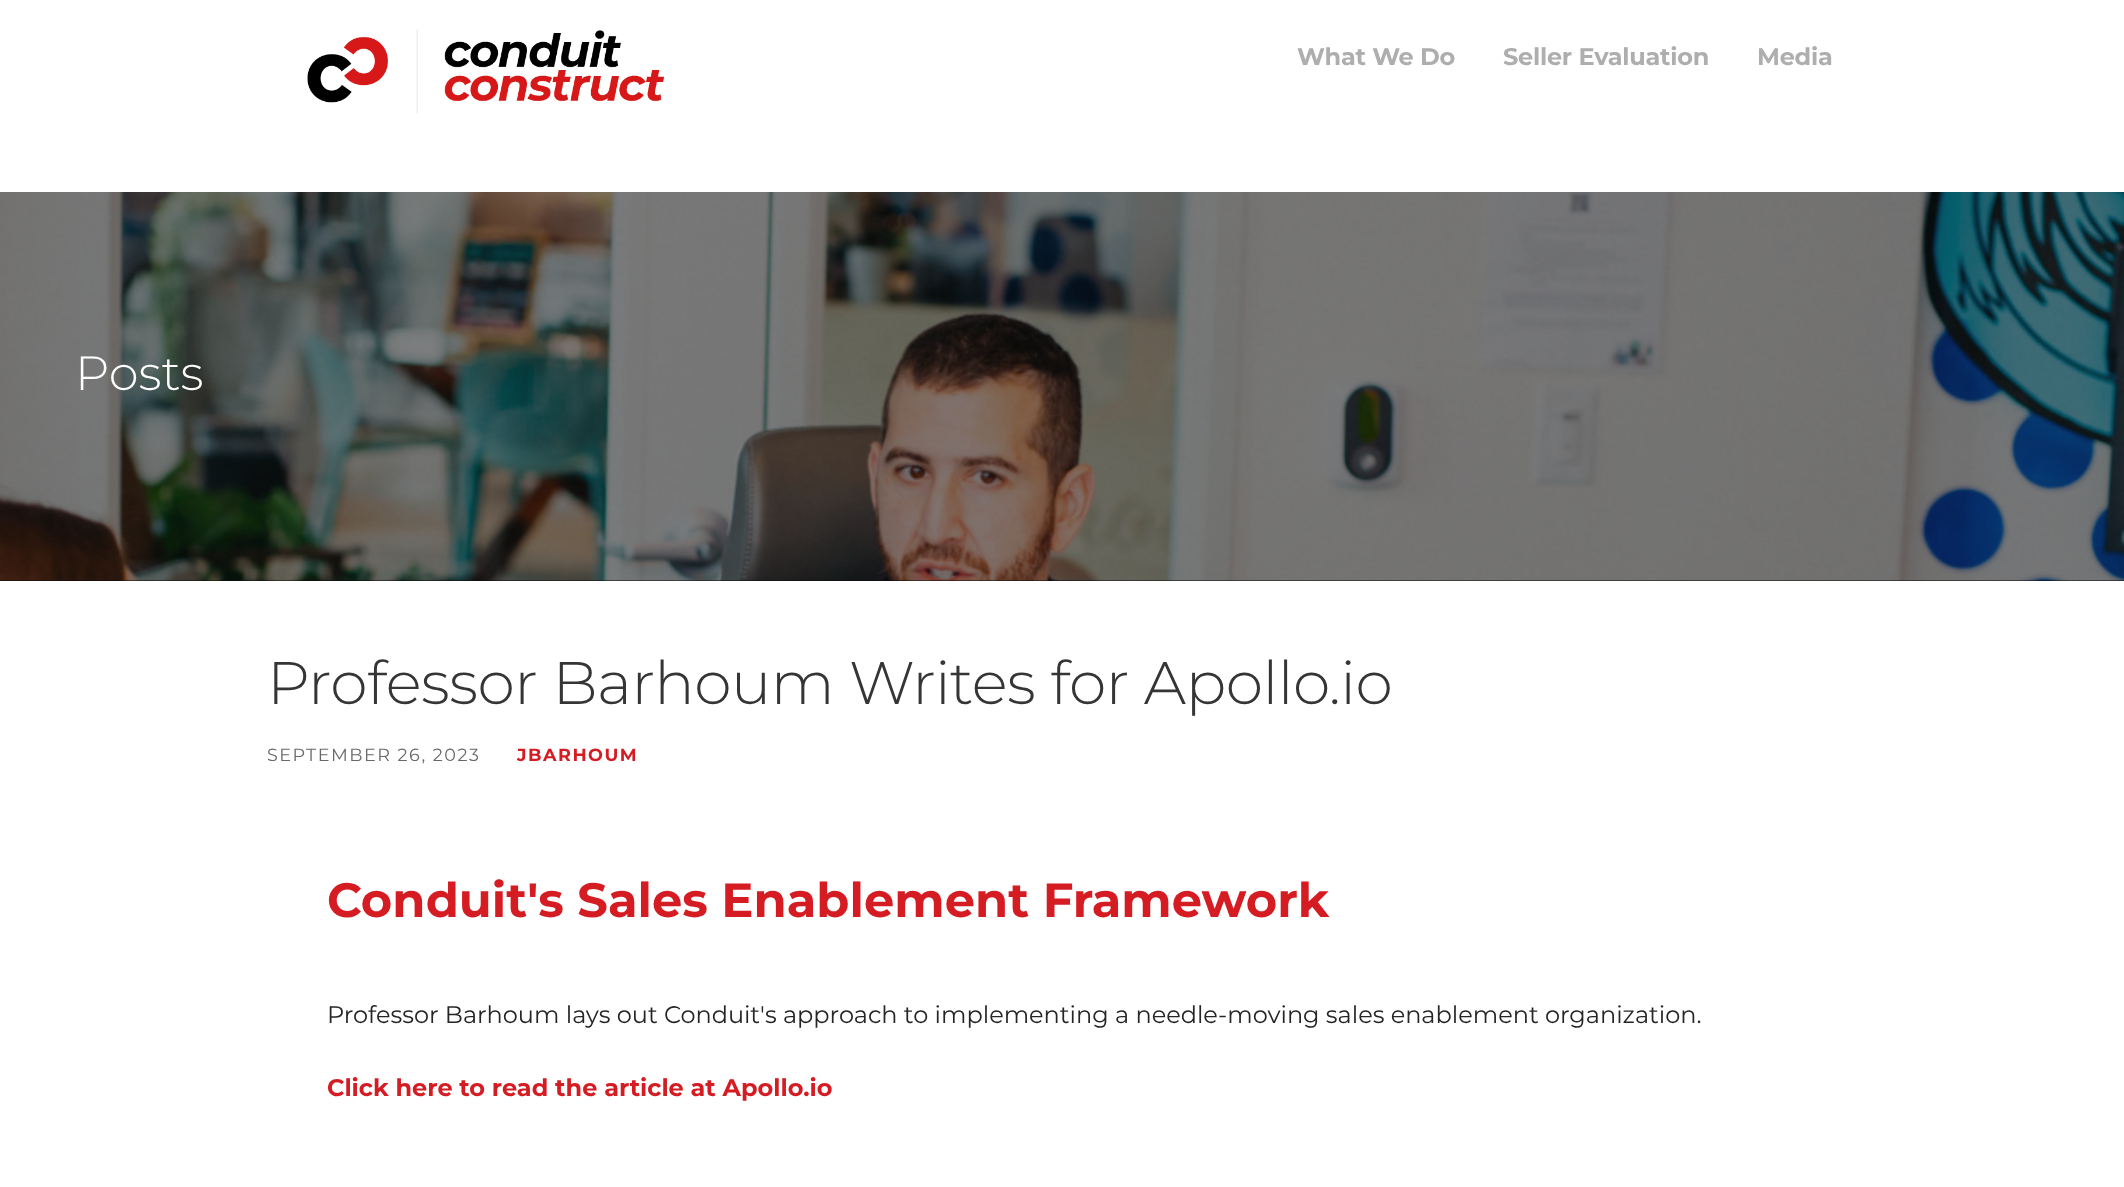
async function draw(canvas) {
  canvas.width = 2124
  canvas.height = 1187
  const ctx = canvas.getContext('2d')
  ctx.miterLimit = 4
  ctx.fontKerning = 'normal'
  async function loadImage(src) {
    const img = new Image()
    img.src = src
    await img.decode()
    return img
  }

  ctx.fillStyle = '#fff'
  ctx.fillRect(0, 0, 2124, 1187)
  ctx.drawImage(await loadImage('image0.png'), 307, 29, 357, 84)
  ctx.letterSpacing = '-0.25px'
  ctx.font = 'bold 24px Montserrat'
  ctx.fillStyle = '#aeaeae'
  ctx.fillText('What We Do', 1297, 65)
  ctx.fillText('Seller Evaluation', 1503, 65)
  ctx.fillText('Media', 1757, 65)
  ctx.fillStyle = '#0a0a0a'
  ctx.fillRect(0, 580, 2124, 1)
  ctx.drawImage(await loadImage('image1.png'), 0, 192, 2124, 389)
  ctx.letterSpacing = '0px'
  ctx.font = '300 48px Montserrat'
  ctx.fillStyle = '#fff'
  ctx.fillText('Posts', 75, 390)
  ctx.letterSpacing = '-0.45px'
  ctx.font = '300 60px Montserrat'
  ctx.fillStyle = '#353535'
  ctx.fillText('Professor Barhoum Writes for Apollo.io', 267, 704)
  ctx.letterSpacing = '1.5px'
  ctx.font = '17.6px Montserrat'
  ctx.fillStyle = '#686868'
  ctx.fillText('SEPTEMBER 26, 2023', 267, 761)
  ctx.font = 'bold 17.6px Montserrat'
  ctx.fillStyle = '#d51c23'
  ctx.fillText('JBARHOUM', 517, 761)
  ctx.letterSpacing = '0px'
  ctx.font = 'bold 48px Montserrat'
  ctx.fillText('Conduit\'s Sales Enablement Framework', 327, 917)
  ctx.font = '24px Montserrat'
  ctx.fillStyle = '#252525'
  ctx.fillText('Professor Barhoum lays out Conduit\'s approach to implementing a needle-moving sales enablement organization.', 327, 1023)
  ctx.font = 'bold 24px Montserrat'
  ctx.fillStyle = '#d51c23'
  ctx.fillText('Click here to read the article at Apollo.io', 327, 1096)
}

draw(document.querySelector('canvas'))
